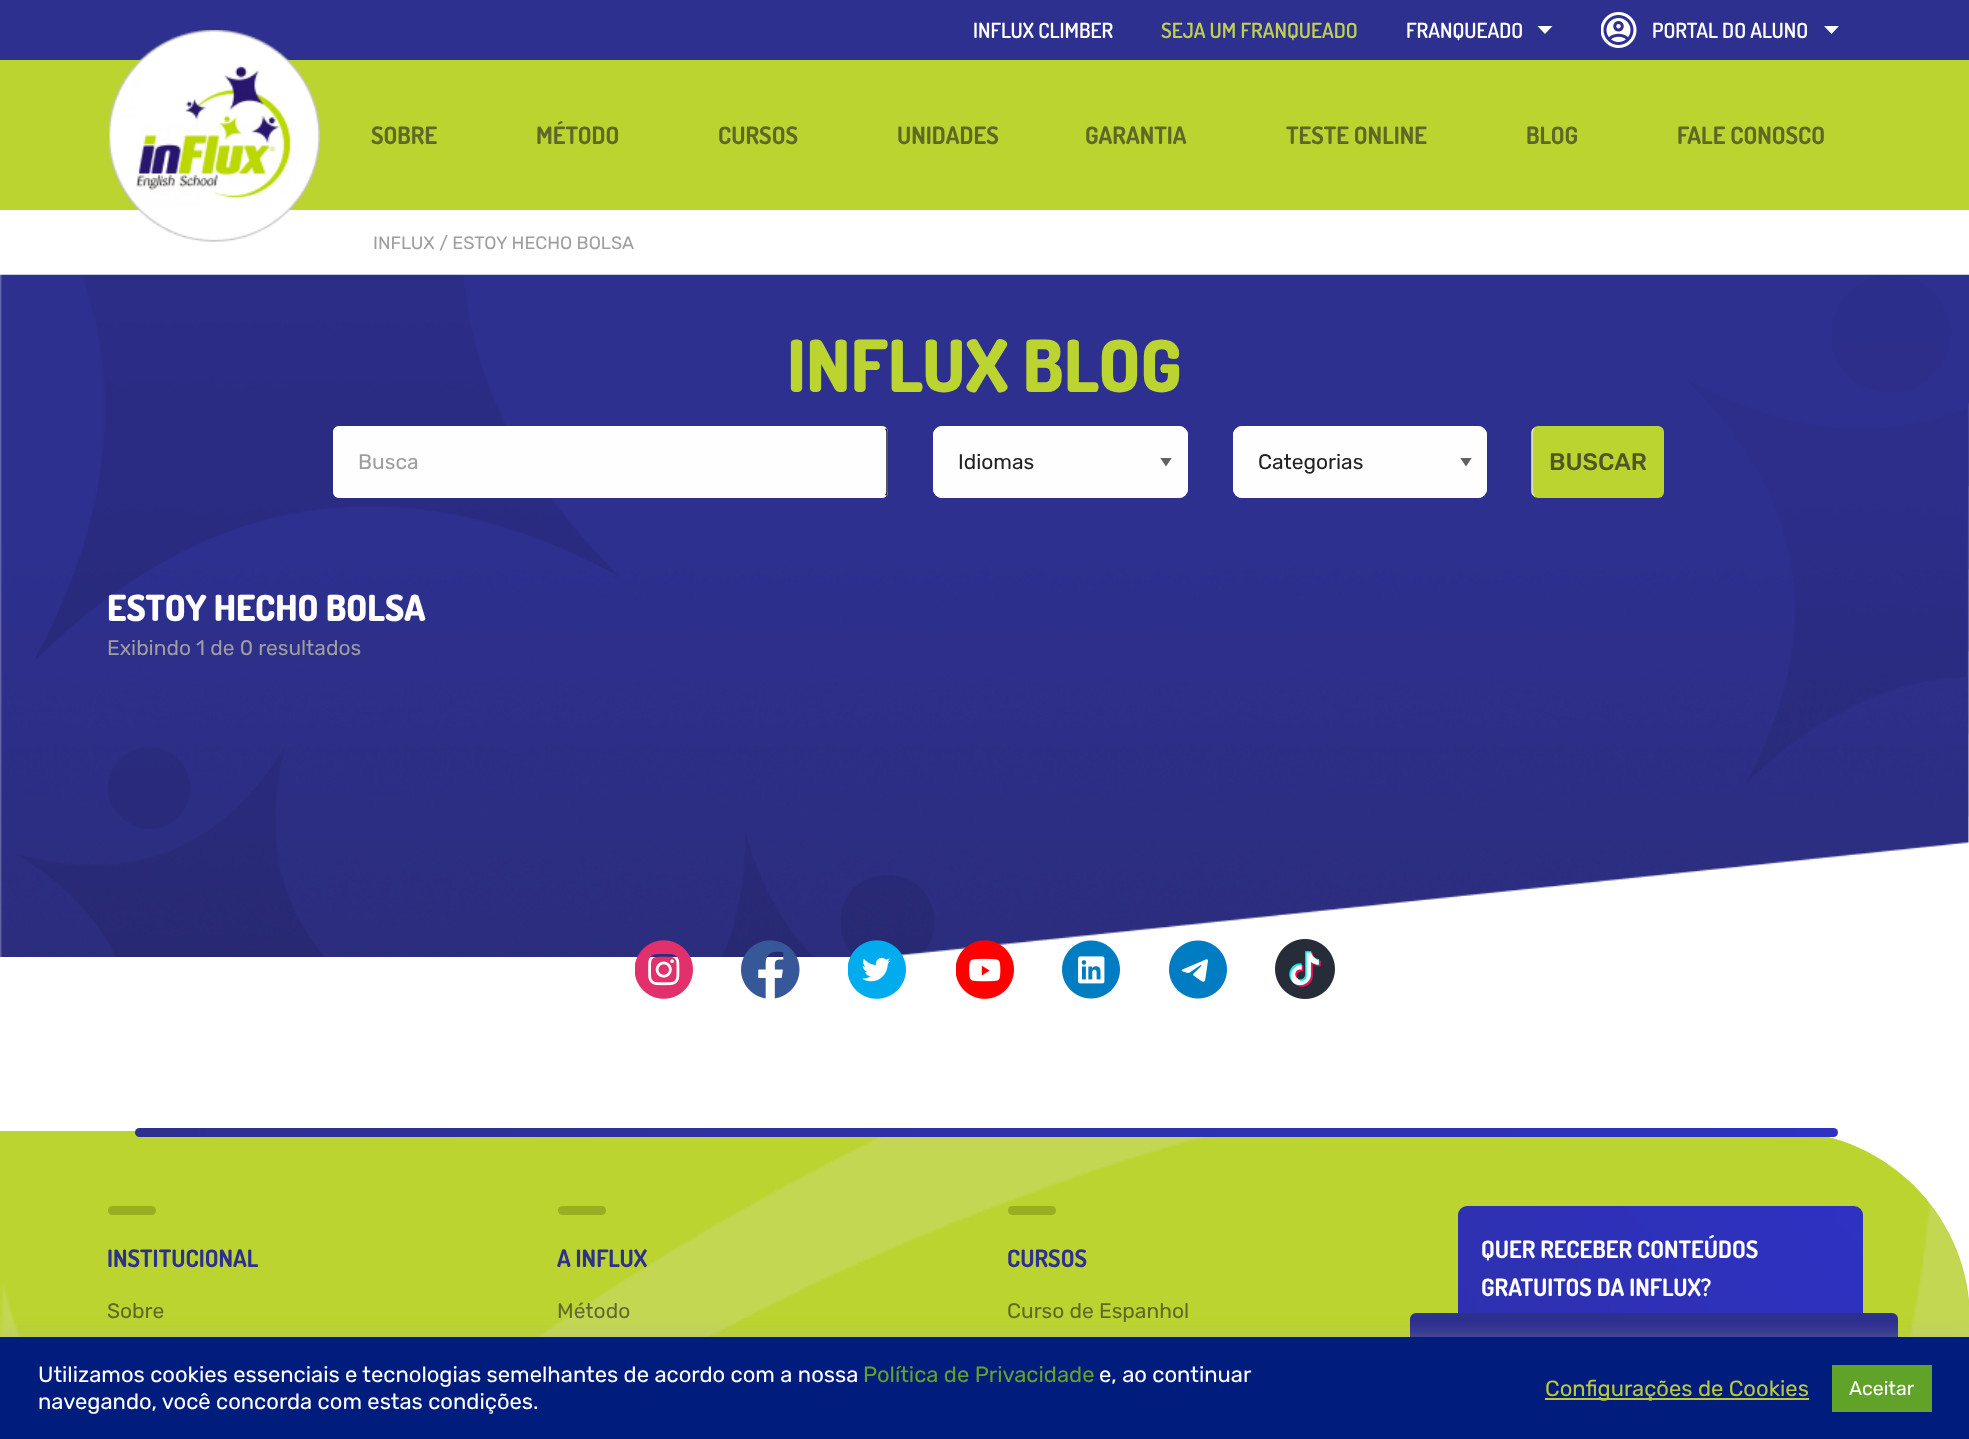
async function draw(canvas) {
  canvas.width = 1969
  canvas.height = 1439
  const ctx = canvas.getContext('2d')
  ctx.miterLimit = 4
  ctx.fontKerning = 'normal'
  async function loadImage(src) {
    const img = new Image()
    img.src = src
    await img.decode()
    return img
  }
  let gradient

  ctx.fillStyle = '#fff'
  ctx.fillRect(0, 0, 1969, 1439)
  ctx.fillStyle = '#2e3090'
  ctx.fillRect(0, 0, 1969, 60)
  ctx.font = '600 21px Dosis'
  ctx.fillStyle = '#fefefe'
  ctx.fillText('INFLUX CLIMBER', 973, 38)
  ctx.fillStyle = '#bfd14e'
  ctx.fillText('SEJA UM FRANQUEADO', 1161, 38)
  ctx.fillStyle = '#fefefe'
  ctx.fillText('FRANQUEADO', 1406, 38)
  ctx.fillStyle = '#fff'
  ctx.beginPath()
  ctx.moveTo(1537.5, 26)
  ctx.lineTo(1545, 34)
  ctx.lineTo(1552.5, 26)
  ctx.closePath()
  ctx.fill()
  ctx.drawImage(await loadImage('image0.png'), 1601, 12, 36, 36)
  ctx.fillStyle = '#fefefe'
  ctx.fillText('PORTAL DO ALUNO', 1652, 38)
  ctx.fillStyle = '#fff'
  ctx.beginPath()
  ctx.moveTo(1824, 26)
  ctx.lineTo(1831.5, 34)
  ctx.lineTo(1839, 26)
  ctx.closePath()
  ctx.fill()
  ctx.fillStyle = '#bcd42f'
  ctx.fillRect(0, 60, 1969, 150)
  ctx.drawImage(await loadImage('image1.png'), 109, 30, 212, 212)
  ctx.font = 'bold 24px Dosis'
  ctx.fillStyle = '#5f6927'
  ctx.fillText('SOBRE', 371, 144)
  ctx.fillText('MÉTODO', 536, 144)
  ctx.fillText('CURSOS', 718, 144)
  ctx.fillText('UNIDADES', 897, 144)
  ctx.fillText('GARANTIA', 1085, 144)
  ctx.fillText('TESTE ONLINE', 1286, 144)
  ctx.fillText('BLOG', 1526, 144)
  ctx.fillText('FALE CONOSCO', 1677, 144)
  ctx.font = '18px Rubik'
  ctx.fillStyle = '#9e9e9e'
  ctx.fillText('INFLUX / ESTOY HECHO BOLSA', 373, 249)
  ctx.drawImage(await loadImage('image2.png'), 0, 274, 1969, 683)
  ctx.font = '800 72px Dosis'
  ctx.fillStyle = '#bcd42f'
  ctx.fillText('INFLUX BLOG', 787, 392)
  ctx.fillStyle = '#fefefe'
  ctx.beginPath()
  ctx.roundRect(333, 426, 555, 72, 6)
  ctx.fill()
  ctx.beginPath()
  ctx.moveTo(885.5, 428.5)
  ctx.bezierCurveTo(886.5, 429.5, 887, 430.5, 887, 432)
  ctx.lineTo(887, 492)
  ctx.bezierCurveTo(887, 493.5, 886.5, 494.5, 885.5, 495.5)
  ctx.strokeStyle = '#212121'
  ctx.lineWidth = 1.5
  ctx.stroke()
  ctx.beginPath()
  ctx.moveTo(885.5, 495.5)
  ctx.bezierCurveTo(884.5, 496.5, 883.5, 497, 882, 497)
  ctx.lineTo(339, 497)
  ctx.bezierCurveTo(337.5, 497, 336.5, 496.5, 335.5, 495.5)
  ctx.bezierCurveTo(334.5, 494.5, 334, 493.5, 334, 492)
  ctx.lineTo(334, 432)
  ctx.bezierCurveTo(334, 430.5, 334.5, 429.5, 335.5, 428.5)
  ctx.bezierCurveTo(336.5, 427.5, 337.5, 427, 339, 427)
  ctx.lineTo(882, 427)
  ctx.bezierCurveTo(883.5, 427, 884.5, 427.5, 885.5, 428.5)
  ctx.strokeStyle = '#fefefe'
  ctx.stroke()
  ctx.font = '21px Rubik'
  ctx.fillStyle = '#9e9e9e'
  ctx.fillText('Busca', 358, 469)
  ctx.fillStyle = '#fefefe'
  ctx.beginPath()
  ctx.roundRect(933, 426, 255, 72, 9)
  ctx.fill()
  ctx.save()
  ctx.beginPath()
  ctx.rect(1160, 458, 13, 9)
  ctx.clip()
  ctx.fillStyle = '#616161'
  ctx.beginPath()
  ctx.moveTo(1160, 457.5)
  ctx.lineTo(1172, 457.5)
  ctx.lineTo(1166, 466.5)
  ctx.closePath()
  ctx.fill()
  ctx.restore()
  ctx.beginPath()
  ctx.roundRect(934, 427, 253, 70, 8)
  ctx.lineWidth = 2
  ctx.stroke()
  ctx.fillStyle = '#212121'
  ctx.fillText('Idiomas', 958, 469)
  ctx.fillStyle = '#fefefe'
  ctx.beginPath()
  ctx.roundRect(1233, 426, 254, 72, 9)
  ctx.fill()
  ctx.save()
  ctx.beginPath()
  ctx.rect(1460, 458, 13, 9)
  ctx.clip()
  ctx.fillStyle = '#616161'
  ctx.beginPath()
  ctx.moveTo(1460, 457.5)
  ctx.lineTo(1472, 457.5)
  ctx.lineTo(1466, 466.5)
  ctx.closePath()
  ctx.fill()
  ctx.restore()
  ctx.beginPath()
  ctx.roundRect(1234, 427, 252, 70, 8)
  ctx.stroke()
  ctx.fillStyle = '#212121'
  ctx.fillText('Categorias', 1258, 469)
  ctx.fillStyle = '#bcd42f'
  ctx.beginPath()
  ctx.roundRect(1532, 426, 132, 72, 6)
  ctx.fill()
  ctx.beginPath()
  ctx.moveTo(1534, 495.5)
  ctx.bezierCurveTo(1533, 494.5, 1532, 493.5, 1532, 492)
  ctx.lineTo(1532, 432)
  ctx.bezierCurveTo(1532, 430.5, 1533, 429.5, 1534, 428.5)
  ctx.strokeStyle = '#e5e5e5'
  ctx.lineWidth = 1.5
  ctx.stroke()
  ctx.font = '500 24px Rubik'
  ctx.fillStyle = '#505725'
  ctx.fillText('BUSCAR', 1549, 470)
  ctx.font = '800 36px Dosis'
  ctx.fillStyle = '#fefefe'
  ctx.fillText('ESTOY HECHO BOLSA', 107, 621)
  ctx.font = '21px Rubik'
  ctx.fillStyle = '#9e9e9e'
  ctx.fillText('Exibindo 1 de 0 resultados', 107, 655)
  ctx.drawImage(await loadImage('image3.png'), 635, 940, 58, 59)
  ctx.drawImage(await loadImage('image4.png'), 741, 940, 59, 59)
  ctx.drawImage(await loadImage('image5.png'), 848, 940, 58, 59)
  ctx.drawImage(await loadImage('image6.png'), 956, 940, 58, 59)
  ctx.drawImage(await loadImage('image7.png'), 1062, 940, 58, 59)
  ctx.drawImage(await loadImage('image8.png'), 1169, 940, 58, 59)
  ctx.drawImage(await loadImage('image9.png'), 1275, 939, 60, 60)
  ctx.fillStyle = '#bcd42f'
  ctx.beginPath()
  ctx.moveTo(0, 1131)
  ctx.lineTo(1781, 1131)
  ctx.bezierCurveTo(1885.5, 1131, 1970, 1215.5, 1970, 1320)
  ctx.lineTo(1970, 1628)
  ctx.lineTo(0, 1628)
  ctx.closePath()
  ctx.fill()
  ctx.drawImage(await loadImage('image10.png'), 0, 1137, 1969, 200)
  gradient = ctx.createLinearGradient(1506, 715, 460, 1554)
  gradient.addColorStop(0, '#2e31c2')
  gradient.addColorStop(1, '#2e308f')
  ctx.fillStyle = gradient
  ctx.beginPath()
  ctx.roundRect(135, 1128, 1703, 9, 4.5)
  ctx.fill()
  ctx.fillStyle = '#9aae22'
  ctx.beginPath()
  ctx.roundRect(108, 1206, 48, 9, 4.5)
  ctx.fill()
  ctx.font = 'bold 24px Dosis'
  ctx.fillStyle = '#2e3090'
  ctx.fillText('INSTITUCIONAL', 107, 1267)
  ctx.font = '21px Rubik'
  ctx.fillStyle = '#5f6927'
  ctx.fillText('Sobre', 107, 1318)
  ctx.fillStyle = '#9aae22'
  ctx.beginPath()
  ctx.roundRect(558, 1206, 48, 9, 4.5)
  ctx.fill()
  ctx.font = 'bold 24px Dosis'
  ctx.fillStyle = '#2e3090'
  ctx.fillText('A INFLUX', 557, 1267)
  ctx.font = '21px Rubik'
  ctx.fillStyle = '#616a31'
  ctx.fillText('Método', 557, 1318)
  ctx.fillStyle = '#9aae22'
  ctx.beginPath()
  ctx.roundRect(1008, 1206, 48, 9, 4.5)
  ctx.fill()
  ctx.font = 'bold 24px Dosis'
  ctx.fillStyle = '#2e3090'
  ctx.fillText('CURSOS', 1007, 1267)
  ctx.font = '21px Rubik'
  ctx.fillStyle = '#5f6927'
  ctx.fillText('Curso de Espanhol', 1007, 1318)
  gradient = ctx.createLinearGradient(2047, 1436, 1270, 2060)
  gradient.addColorStop(0, '#2e31c2')
  gradient.addColorStop(1, '#2e308f')
  ctx.fillStyle = gradient
  ctx.beginPath()
  ctx.roundRect(1458, 1206, 405, 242, 9)
  ctx.fill()
  ctx.font = 'bold 24px Dosis'
  ctx.fillStyle = '#fefefe'
  ctx.fillText('QUER RECEBER CONTEÚDOS', 1481, 1258)
  ctx.fillText('GRATUITOS DA INFLUX?', 1481, 1296)
  ctx.fillStyle = '#2e3090'
  ctx.beginPath()
  ctx.roundRect(1410, 1313, 488, 112, 6)
  ctx.fill()
  ctx.fillStyle = '#acabab4d'
  ctx.filter = 'blur(7.5px)'
  ctx.beginPath()
  ctx.rect(0, 1335, 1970, 104)
  ctx.fill()
  ctx.filter = 'none'
  ctx.fillStyle = '#001d7e'
  ctx.fillRect(0, 1337, 1969, 102)
  ctx.font = '22px Rubik'
  ctx.fillStyle = '#fefefe'
  ctx.fillText('Utilizamos cookies essenciais e tecnologias semelhantes de acordo com a nossa', 38, 1382)
  ctx.fillStyle = '#61a229'
  ctx.fillText('Política de Privacidade', 863, 1382)
  ctx.fillStyle = '#fefefe'
  ctx.fillText('e, ao continuar', 1099, 1382)
  ctx.fillText('navegando, você concorda com estas condições.', 38, 1409)
  ctx.fillStyle = '#b9c93b'
  ctx.fillRect(1545, 1398, 264, 2)
  ctx.fillText('Configurações de Cookies', 1545, 1396)
  ctx.fillStyle = '#61a229'
  ctx.fillRect(1832, 1365, 100, 47)
  ctx.font = '19.5px Rubik'
  ctx.fillStyle = '#fefefe'
  ctx.fillText('Aceitar', 1849, 1395)
}

draw(document.querySelector('canvas'))
